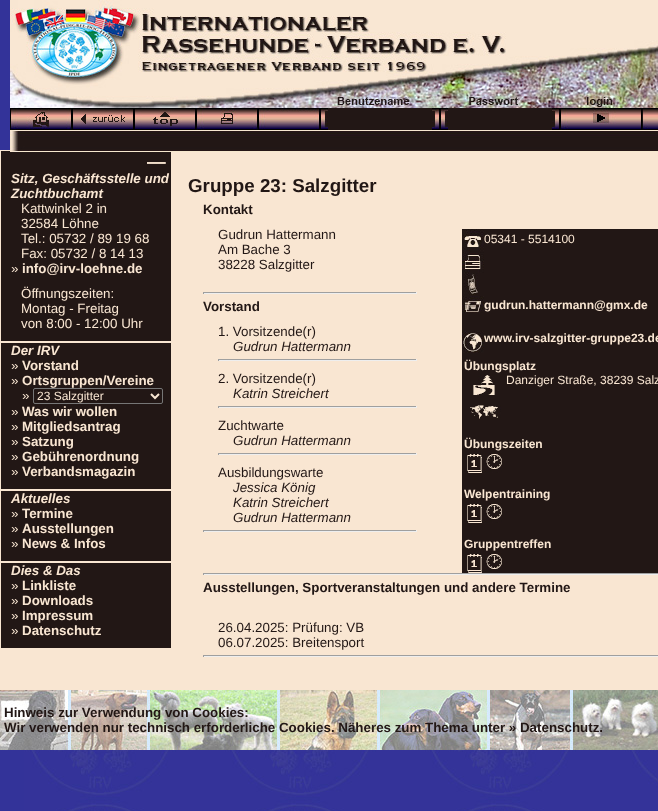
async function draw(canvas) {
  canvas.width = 658
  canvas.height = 811
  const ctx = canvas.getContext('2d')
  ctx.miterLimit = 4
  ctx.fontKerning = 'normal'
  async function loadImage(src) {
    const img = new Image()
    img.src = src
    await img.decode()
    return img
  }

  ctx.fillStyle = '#339'
  ctx.fillRect(0, 0, 658, 811)
  ctx.drawImage(await loadImage('image0.png'), 24, 750, 634, 61)
  ctx.fillStyle = '#f9e6d2'
  ctx.fillRect(0, 150, 658, 540)
  ctx.drawImage(await loadImage('image1.png'), 10, 0, 648, 130)
  ctx.drawImage(await loadImage('image2.png'), 10, 108, 62, 22)
  ctx.drawImage(await loadImage('image3.png'), 72, 108, 62, 22)
  ctx.drawImage(await loadImage('image4.png'), 134, 108, 62, 22)
  ctx.drawImage(await loadImage('image5.png'), 196, 108, 62, 22)
  ctx.fillStyle = '#221715'
  ctx.fillRect(328, 108, 104, 22)
  ctx.fillRect(448, 108, 104, 22)
  ctx.drawImage(await loadImage('image6.png'), 560, 108, 82, 22)
  ctx.drawImage(await loadImage('image7.png'), 642, 108, 16, 22)
  ctx.fillRect(1, 151, 170, 190)
  ctx.drawImage(await loadImage('image8.png'), 10, 130, 648, 22)
  ctx.font = 'bold 18.75px Liberation Sans'
  ctx.fillStyle = '#f9e6d2'
  ctx.fillText('—', 147, 168)
  ctx.font = 'italic bold 13.35px Liberation Sans'
  ctx.fillText('Sitz, Geschäftsstelle und', 11, 183)
  ctx.fillText('Zuchtbuchamt', 11, 198)
  ctx.font = '13.35px Liberation Sans'
  ctx.fillText('Kattwinkel 2 in', 21, 213)
  ctx.fillText('32584 Löhne', 21, 228)
  ctx.fillText('Tel.: 05732 / 89 19 68', 21, 243)
  ctx.fillText('Fax: 05732 / 8 14 13', 21, 258)
  ctx.fillText('»', 11, 273)
  ctx.font = 'bold 13.35px Liberation Sans'
  ctx.fillText('info@irv-loehne.de', 22, 273)
  ctx.font = '13.35px Liberation Sans'
  ctx.fillText('Öffnungszeiten:', 21, 298)
  ctx.fillText('Montag - Freitag', 21, 313)
  ctx.fillText('von 8:00 - 12:00 Uhr', 21, 328)
  ctx.fillStyle = '#221715'
  ctx.fillRect(1, 343, 170, 146)
  ctx.font = 'italic bold 13.35px Liberation Sans'
  ctx.fillStyle = '#f9e6d2'
  ctx.fillText('Der IRV', 11, 355)
  ctx.font = '13.35px Liberation Sans'
  ctx.fillText('»', 11, 370)
  ctx.font = 'bold 13.35px Liberation Sans'
  ctx.fillText('Vorstand', 22, 370)
  ctx.font = '13.35px Liberation Sans'
  ctx.fillText('»', 11, 385)
  ctx.font = 'bold 13.35px Liberation Sans'
  ctx.fillText('Ortsgruppen/Vereine', 22, 385)
  ctx.font = '13.35px Liberation Sans'
  ctx.fillText('»', 22, 400)
  ctx.beginPath()
  ctx.roundRect(33.5, 388.5, 129, 15, 1.5)
  ctx.strokeStyle = '#767676'
  ctx.stroke()
  ctx.beginPath()
  ctx.moveTo(151, 394)
  ctx.lineTo(155, 398)
  ctx.lineTo(159, 394)
  ctx.strokeStyle = '#f9e6d2'
  ctx.lineWidth = 2
  ctx.stroke()
  ctx.font = '12px Liberation Sans'
  ctx.fillText('23 Salzgitter', 37, 400)
  ctx.font = '13.35px Liberation Sans'
  ctx.fillText('»', 11, 416)
  ctx.font = 'bold 13.35px Liberation Sans'
  ctx.fillText('Was wir wollen', 22, 416)
  ctx.font = '13.35px Liberation Sans'
  ctx.fillText('»', 11, 431)
  ctx.font = 'bold 13.35px Liberation Sans'
  ctx.fillText('Mitgliedsantrag', 22, 431)
  ctx.font = '13.35px Liberation Sans'
  ctx.fillText('»', 11, 446)
  ctx.font = 'bold 13.35px Liberation Sans'
  ctx.fillText('Satzung', 22, 446)
  ctx.font = '13.35px Liberation Sans'
  ctx.fillText('»', 11, 461)
  ctx.font = 'bold 13.35px Liberation Sans'
  ctx.fillText('Gebührenordnung', 22, 461)
  ctx.font = '13.35px Liberation Sans'
  ctx.fillText('»', 11, 476)
  ctx.font = 'bold 13.35px Liberation Sans'
  ctx.fillText('Verbandsmagazin', 22, 476)
  ctx.fillStyle = '#221715'
  ctx.fillRect(1, 491, 170, 70)
  ctx.font = 'italic bold 13.35px Liberation Sans'
  ctx.fillStyle = '#f9e6d2'
  ctx.fillText('Aktuelles', 11, 503)
  ctx.font = '13.35px Liberation Sans'
  ctx.fillText('»', 11, 518)
  ctx.font = 'bold 13.35px Liberation Sans'
  ctx.fillText('Termine', 22, 518)
  ctx.font = '13.35px Liberation Sans'
  ctx.fillText('»', 11, 533)
  ctx.font = 'bold 13.35px Liberation Sans'
  ctx.fillText('Ausstellungen', 22, 533)
  ctx.font = '13.35px Liberation Sans'
  ctx.fillText('»', 11, 548)
  ctx.font = 'bold 13.35px Liberation Sans'
  ctx.fillText('News & Infos', 22, 548)
  ctx.fillStyle = '#221715'
  ctx.fillRect(1, 563, 170, 85)
  ctx.font = 'italic bold 13.35px Liberation Sans'
  ctx.fillStyle = '#f9e6d2'
  ctx.fillText('Dies & Das', 11, 575)
  ctx.font = '13.35px Liberation Sans'
  ctx.fillText('»', 11, 590)
  ctx.font = 'bold 13.35px Liberation Sans'
  ctx.fillText('Linkliste', 22, 590)
  ctx.font = '13.35px Liberation Sans'
  ctx.fillText('»', 11, 605)
  ctx.font = 'bold 13.35px Liberation Sans'
  ctx.fillText('Downloads', 22, 605)
  ctx.font = '13.35px Liberation Sans'
  ctx.fillText('»', 11, 620)
  ctx.font = 'bold 13.35px Liberation Sans'
  ctx.fillText('Impressum', 22, 620)
  ctx.font = '13.35px Liberation Sans'
  ctx.fillText('»', 11, 635)
  ctx.font = 'bold 13.35px Liberation Sans'
  ctx.fillText('Datenschutz', 22, 635)
  ctx.font = 'bold 18.75px Liberation Sans'
  ctx.fillStyle = '#221715'
  ctx.fillText('Gruppe 23: Salzgitter', 188, 192)
  ctx.font = 'bold 13.35px Liberation Sans'
  ctx.fillText('Kontakt', 203, 214)
  ctx.font = '13.35px Liberation Sans'
  ctx.fillText('Gudrun Hattermann', 218, 239)
  ctx.fillRect(462, 229, 196, 344)
  ctx.drawImage(await loadImage('image9.png'), 463, 229, 21, 22)
  ctx.font = '12px Liberation Sans'
  ctx.fillStyle = '#f9e6d2'
  ctx.fillText('05341 - 5514100', 484, 243)
  ctx.drawImage(await loadImage('image10.png'), 462, 252, 22, 21)
  ctx.drawImage(await loadImage('image11.png'), 464, 273, 14, 22)
  ctx.drawImage(await loadImage('image12.png'), 462, 296, 22, 17)
  ctx.font = 'bold 12px Liberation Sans'
  ctx.fillText('gudrun.hattermann@gmx.de', 484, 309)
  ctx.drawImage(await loadImage('image13.png'), 462, 331, 22, 22)
  ctx.fillText('www.irv-salzgitter-gruppe23.de', 484, 342)
  ctx.fillText('Übungsplatz', 464, 370)
  ctx.drawImage(await loadImage('image14.png'), 473, 375, 22, 20)
  ctx.font = '12px Liberation Sans'
  ctx.fillText('Danziger Straße, 38239 Salz', 506, 384)
  ctx.drawImage(await loadImage('image15.png'), 470, 405, 31, 14)
  ctx.font = 'bold 12px Liberation Sans'
  ctx.fillText('Übungszeiten', 464, 448)
  ctx.drawImage(await loadImage('image16.png'), 467, 452, 35, 21)
  ctx.fillText('Welpentraining', 464, 498)
  ctx.drawImage(await loadImage('image16.png'), 467, 502, 35, 21)
  ctx.fillText('Gruppentreffen', 464, 548)
  ctx.drawImage(await loadImage('image16.png'), 467, 552, 35, 21)
  ctx.font = '13.35px Liberation Sans'
  ctx.fillStyle = '#221715'
  ctx.fillText('Am Bache 3', 218, 254)
  ctx.fillText('38228 Salzgitter', 218, 269)
  ctx.fillStyle = '#9f9f9f'
  ctx.fillRect(203, 292, 214, 1)
  ctx.fillStyle = '#eee'
  ctx.fillRect(416, 292, 1, 2)
  ctx.fillRect(203, 293, 214, 1)
  ctx.fillStyle = '#9f9f9f'
  ctx.fillRect(203, 292, 1, 2)
  ctx.font = 'bold 13.35px Liberation Sans'
  ctx.fillStyle = '#221715'
  ctx.fillText('Vorstand', 203, 311)
  ctx.font = '13.35px Liberation Sans'
  ctx.fillText('1. Vorsitzende(r)', 218, 336)
  ctx.font = 'italic 13.35px Liberation Sans'
  ctx.fillText('Gudrun Hattermann', 233, 351)
  ctx.fillStyle = '#9f9f9f'
  ctx.fillRect(218, 359, 199, 1)
  ctx.fillStyle = '#eee'
  ctx.fillRect(416, 359, 1, 2)
  ctx.fillRect(218, 360, 199, 1)
  ctx.fillStyle = '#9f9f9f'
  ctx.fillRect(218, 359, 1, 2)
  ctx.font = '13.35px Liberation Sans'
  ctx.fillStyle = '#221715'
  ctx.fillText('2. Vorsitzende(r)', 218, 383)
  ctx.font = 'italic 13.35px Liberation Sans'
  ctx.fillText('Katrin Streichert', 233, 398)
  ctx.fillStyle = '#9f9f9f'
  ctx.fillRect(218, 406, 199, 1)
  ctx.fillStyle = '#eee'
  ctx.fillRect(416, 406, 1, 2)
  ctx.fillRect(218, 407, 199, 1)
  ctx.fillStyle = '#9f9f9f'
  ctx.fillRect(218, 406, 1, 2)
  ctx.font = '13.35px Liberation Sans'
  ctx.fillStyle = '#221715'
  ctx.fillText('Zuchtwarte', 218, 430)
  ctx.font = 'italic 13.35px Liberation Sans'
  ctx.fillText('Gudrun Hattermann', 233, 445)
  ctx.fillStyle = '#9f9f9f'
  ctx.fillRect(218, 453, 199, 1)
  ctx.fillStyle = '#eee'
  ctx.fillRect(416, 453, 1, 2)
  ctx.fillRect(218, 454, 199, 1)
  ctx.fillStyle = '#9f9f9f'
  ctx.fillRect(218, 453, 1, 2)
  ctx.font = '13.35px Liberation Sans'
  ctx.fillStyle = '#221715'
  ctx.fillText('Ausbildungswarte', 218, 477)
  ctx.font = 'italic 13.35px Liberation Sans'
  ctx.fillText('Jessica König', 233, 492)
  ctx.fillText('Katrin Streichert', 233, 507)
  ctx.fillText('Gudrun Hattermann', 233, 522)
  ctx.fillStyle = '#9f9f9f'
  ctx.fillRect(203, 530, 214, 1)
  ctx.fillStyle = '#eee'
  ctx.fillRect(416, 530, 1, 2)
  ctx.fillRect(203, 531, 214, 1)
  ctx.fillStyle = '#9f9f9f'
  ctx.fillRect(203, 530, 1, 2)
  ctx.fillRect(203, 573, 455, 1)
  ctx.fillStyle = '#eee'
  ctx.fillRect(203, 574, 455, 1)
  ctx.fillStyle = '#9f9f9f'
  ctx.fillRect(203, 573, 1, 2)
  ctx.font = 'bold 13.35px Liberation Sans'
  ctx.fillStyle = '#221715'
  ctx.fillText('Ausstellungen, Sportveranstaltungen und andere Termine', 203, 592)
  ctx.font = '13.35px Liberation Sans'
  ctx.fillText('26.04.2025: Prüfung: VB', 218, 632)
  ctx.fillText('06.07.2025: Breitensport', 218, 647)
  ctx.fillStyle = '#9f9f9f'
  ctx.fillRect(203, 655, 455, 1)
  ctx.fillStyle = '#eee'
  ctx.fillRect(203, 656, 455, 1)
  ctx.fillStyle = '#9f9f9f'
  ctx.fillRect(203, 655, 1, 2)
  ctx.drawImage(await loadImage('image17.png'), 0, 690, 658, 60)
  ctx.font = 'bold 13.35px Liberation Sans'
  ctx.fillStyle = '#221715'
  ctx.fillText('Hinweis zur Verwendung von Cookies:', 4, 717)
  ctx.fillText('Wir verwenden nur technisch erforderliche Cookies. Näheres zum Thema unter » Datenschutz.', 4, 732)
}

draw(document.querySelector('canvas'))
